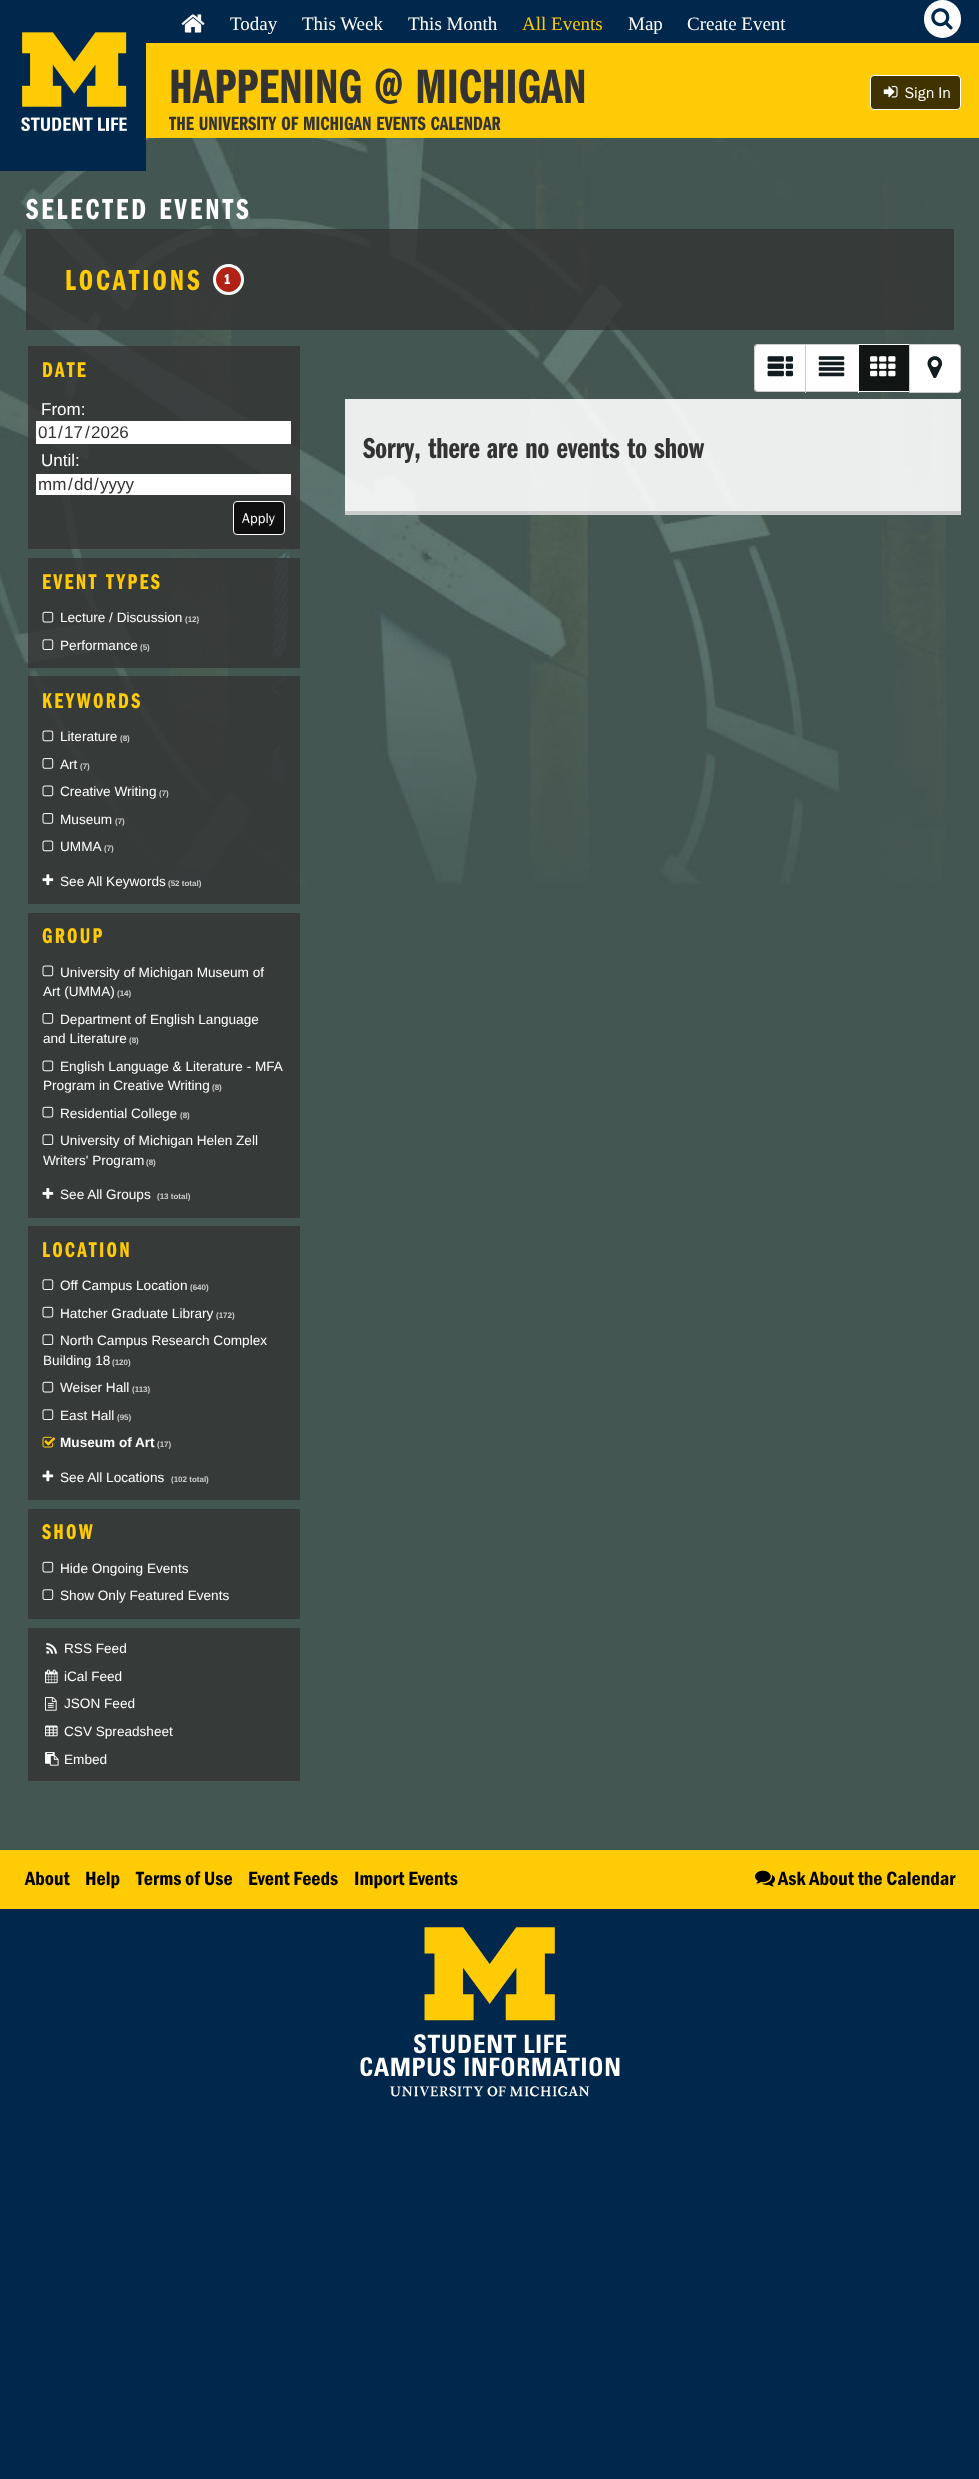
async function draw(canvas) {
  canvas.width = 979
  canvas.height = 2479
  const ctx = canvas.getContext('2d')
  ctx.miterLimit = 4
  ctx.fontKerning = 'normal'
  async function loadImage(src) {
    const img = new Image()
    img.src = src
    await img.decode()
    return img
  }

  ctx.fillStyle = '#00274c'
  ctx.fillRect(0, 0, 979, 2479)
  ctx.fillStyle = '#445652'
  ctx.fillRect(0, 138, 979, 1712)
  ctx.drawImage(await loadImage('image0.png'), 0, 138, 946, 746)
  ctx.fillStyle = '#fff'
  ctx.beginPath()
  ctx.roundRect(924, 0, 37, 38, 18.5)
  ctx.fill()
  ctx.drawImage(await loadImage('image1.png'), 931, 8, 22, 22)
  ctx.fillStyle = '#00274c'
  ctx.fillRect(0, 138, 146, 33)
  ctx.drawImage(await loadImage('image2.png'), 21, 32, 106, 99)
  ctx.drawImage(await loadImage('image3.png'), 181, 14, 24, 19)
  ctx.font = '19px Liberation Serif'
  ctx.fillStyle = '#fff'
  ctx.fillText('Today', 230, 30)
  ctx.fillText('This Week', 302, 30)
  ctx.fillText('This Month', 408, 30)
  ctx.fillStyle = '#ffcb05'
  ctx.fillText('All Events', 522, 30)
  ctx.fillStyle = '#fff'
  ctx.fillText('Map', 628, 30)
  ctx.fillText('Create Event', 687, 30)
  ctx.fillStyle = '#ffcb05'
  ctx.fillRect(146, 43, 833, 95)
  ctx.fillStyle = '#403301'
  ctx.beginPath()
  ctx.roundRect(870.5, 75.5, 90, 34, 3.5)
  ctx.fill()
  ctx.strokeStyle = '#fff'
  ctx.stroke()
  ctx.drawImage(await loadImage('image4.png'), 883, 85, 15, 13)
  ctx.font = '16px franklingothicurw'
  ctx.fillStyle = '#fff'
  ctx.fillText('Sign In', 905, 98)
  ctx.font = '600 50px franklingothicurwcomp'
  ctx.fillStyle = '#333'
  ctx.fillText('HAPPENING @ MICHIGAN', 169, 103)
  ctx.font = '600 20px franklingothicurwcomp'
  ctx.fillText('THE UNIVERSITY OF MICHIGAN EVENTS CALENDAR', 169, 130)
  ctx.letterSpacing = '3px'
  ctx.font = '600 30px franklingothicurwcomp'
  ctx.fillStyle = '#fff'
  ctx.fillText('SELECTED EVENTS', 26, 219)
  ctx.fillStyle = '#333333cc'
  ctx.fillRect(26, 229, 928, 101)
  ctx.fillStyle = '#ffcb05'
  ctx.fillText('LOCATIONS', 65, 290)
  ctx.fillStyle = '#b22116'
  ctx.beginPath()
  ctx.arc(228.5, 279.5, 14, 0, 2 * Math.PI)
  ctx.fill()
  ctx.lineWidth = 3
  ctx.stroke()
  ctx.font = '600 15px franklingothicurwcomp'
  ctx.fillStyle = '#fff'
  ctx.fillText('1', 224, 284)
  ctx.fillStyle = '#333333cc'
  ctx.fillRect(28, 346, 272, 203)
  ctx.letterSpacing = '2.25px'
  ctx.font = '600 22px franklingothicurwcomp'
  ctx.fillStyle = '#ffcb05'
  ctx.fillText('DATE', 42, 377)
  ctx.letterSpacing = '0px'
  ctx.font = '17px Liberation Sans'
  ctx.fillStyle = '#fff'
  ctx.fillText('From:', 41, 415)
  ctx.fillRect(36, 421, 255, 23)
  ctx.fillStyle = '#333'
  ctx.fillText('01', 38, 438)
  ctx.fillText('/', 58, 438)
  ctx.fillText('17', 64, 438)
  ctx.fillText('/', 85, 438)
  ctx.fillText('2026', 91, 438)
  ctx.fillStyle = '#fff'
  ctx.fillText('Until:', 41, 466)
  ctx.fillRect(36, 474, 255, 21)
  ctx.fillStyle = '#333'
  ctx.fillText('mm', 38, 490)
  ctx.fillText('/', 68, 490)
  ctx.fillText('dd', 74, 490)
  ctx.fillText('/', 94, 490)
  ctx.fillText('yyyy', 100, 490)
  ctx.fillStyle = '#0e0f0e'
  ctx.beginPath()
  ctx.roundRect(233.5, 501.5, 51, 33, 3.5)
  ctx.fill()
  ctx.lineWidth = 1
  ctx.stroke()
  ctx.font = '14.5px franklingothicurw'
  ctx.fillStyle = '#fff'
  ctx.fillText('Apply', 242, 523)
  ctx.fillStyle = '#333333cc'
  ctx.fillRect(28, 558, 272, 110)
  ctx.letterSpacing = '2.25px'
  ctx.font = '600 22px franklingothicurwcomp'
  ctx.fillStyle = '#ffcb05'
  ctx.fillText('EVENT TYPES', 42, 589)
  ctx.drawImage(await loadImage('image5.png'), 42, 611, 12, 12)
  ctx.letterSpacing = '0px'
  ctx.font = '13.6px Liberation Sans'
  ctx.fillStyle = '#fff'
  ctx.fillText('Lecture / Discussion', 60, 622)
  ctx.font = 'bold 8px Liberation Sans'
  ctx.fillStyle = '#ccc'
  ctx.fillText('(12)', 185, 622)
  ctx.drawImage(await loadImage('image6.png'), 42, 639, 12, 11)
  ctx.font = '13.6px Liberation Sans'
  ctx.fillStyle = '#fff'
  ctx.fillText('Performance', 60, 650)
  ctx.font = 'bold 8px Liberation Sans'
  ctx.fillStyle = '#ccc'
  ctx.fillText('(5)', 140, 650)
  ctx.fillStyle = '#333333cc'
  ctx.fillRect(28, 676, 272, 228)
  ctx.letterSpacing = '2.25px'
  ctx.font = '600 22px franklingothicurwcomp'
  ctx.fillStyle = '#ffcb05'
  ctx.fillText('KEYWORDS', 42, 708)
  ctx.drawImage(await loadImage('image7.png'), 42, 730, 12, 12)
  ctx.letterSpacing = '0px'
  ctx.font = '13.6px Liberation Sans'
  ctx.fillStyle = '#fff'
  ctx.fillText('Literature', 60, 741)
  ctx.font = 'bold 8px Liberation Sans'
  ctx.fillStyle = '#ccc'
  ctx.fillText('(8)', 120, 741)
  ctx.drawImage(await loadImage('image8.png'), 42, 758, 12, 11)
  ctx.font = '13.6px Liberation Sans'
  ctx.fillStyle = '#fff'
  ctx.fillText('Art', 60, 769)
  ctx.font = 'bold 8px Liberation Sans'
  ctx.fillStyle = '#ccc'
  ctx.fillText('(7)', 80, 769)
  ctx.drawImage(await loadImage('image9.png'), 42, 785, 12, 12)
  ctx.font = '13.6px Liberation Sans'
  ctx.fillStyle = '#fff'
  ctx.fillText('Creative Writing', 60, 796)
  ctx.font = 'bold 8px Liberation Sans'
  ctx.fillStyle = '#ccc'
  ctx.fillText('(7)', 159, 796)
  ctx.drawImage(await loadImage('image8.png'), 42, 813, 12, 11)
  ctx.font = '13.6px Liberation Sans'
  ctx.fillStyle = '#fff'
  ctx.fillText('Museum', 60, 824)
  ctx.font = 'bold 8px Liberation Sans'
  ctx.fillStyle = '#ccc'
  ctx.fillText('(7)', 115, 824)
  ctx.drawImage(await loadImage('image9.png'), 42, 840, 12, 12)
  ctx.font = '13.6px Liberation Sans'
  ctx.fillStyle = '#fff'
  ctx.fillText('UMMA', 60, 851)
  ctx.font = 'bold 8px Liberation Sans'
  ctx.fillStyle = '#ccc'
  ctx.fillText('(7)', 104, 851)
  ctx.drawImage(await loadImage('image10.png'), 42, 874, 12, 11)
  ctx.font = '13.6px Liberation Sans'
  ctx.fillStyle = '#fff'
  ctx.fillText('See All Keywords', 60, 886)
  ctx.font = 'bold 8px Liberation Sans'
  ctx.fillStyle = '#ccc'
  ctx.fillText('(52 total)', 168, 886)
  ctx.fillStyle = '#363a39'
  ctx.fillRect(28, 913, 272, 305)
  ctx.letterSpacing = '2.25px'
  ctx.font = '600 22px franklingothicurwcomp'
  ctx.fillStyle = '#ffcb05'
  ctx.fillText('GROUP', 42, 943)
  ctx.drawImage(await loadImage('image11.png'), 42, 965, 12, 12)
  ctx.letterSpacing = '0px'
  ctx.font = '13.6px Liberation Sans'
  ctx.fillStyle = '#fff'
  ctx.fillText('University of Michigan Museum of', 60, 977)
  ctx.fillText('Art (UMMA)', 43, 996)
  ctx.font = 'bold 8px Liberation Sans'
  ctx.fillStyle = '#ccc'
  ctx.fillText('(14)', 117, 996)
  ctx.drawImage(await loadImage('image12.png'), 42, 1013, 12, 11)
  ctx.font = '13.6px Liberation Sans'
  ctx.fillStyle = '#fff'
  ctx.fillText('Department of English Language', 60, 1024)
  ctx.fillText('and Literature', 43, 1043)
  ctx.font = 'bold 8px Liberation Sans'
  ctx.fillStyle = '#ccc'
  ctx.fillText('(8)', 129, 1043)
  ctx.drawImage(await loadImage('image11.png'), 42, 1060, 12, 12)
  ctx.font = '13.6px Liberation Sans'
  ctx.fillStyle = '#fff'
  ctx.fillText('English Language & Literature - MFA', 60, 1071)
  ctx.fillText('Program in Creative Writing', 43, 1090)
  ctx.font = 'bold 8px Liberation Sans'
  ctx.fillStyle = '#ccc'
  ctx.fillText('(8)', 212, 1090)
  ctx.drawImage(await loadImage('image13.png'), 42, 1106, 12, 12)
  ctx.font = '13.6px Liberation Sans'
  ctx.fillStyle = '#fff'
  ctx.fillText('Residential College', 60, 1118)
  ctx.font = 'bold 8px Liberation Sans'
  ctx.fillStyle = '#ccc'
  ctx.fillText('(8)', 180, 1118)
  ctx.drawImage(await loadImage('image14.png'), 42, 1134, 12, 11)
  ctx.font = '13.6px Liberation Sans'
  ctx.fillStyle = '#fff'
  ctx.fillText('University of Michigan Helen Zell', 60, 1145)
  ctx.fillText('Writers\' Program', 43, 1165)
  ctx.font = 'bold 8px Liberation Sans'
  ctx.fillStyle = '#ccc'
  ctx.fillText('(8)', 146, 1165)
  ctx.drawImage(await loadImage('image15.png'), 42, 1188, 12, 11)
  ctx.font = '13.6px Liberation Sans'
  ctx.fillStyle = '#fff'
  ctx.fillText('See All Groups', 60, 1199)
  ctx.font = 'bold 8px Liberation Sans'
  ctx.fillStyle = '#ccc'
  ctx.fillText('(13 total)', 157, 1199)
  ctx.fillStyle = '#363a39'
  ctx.fillRect(28, 1226, 272, 274)
  ctx.letterSpacing = '2.25px'
  ctx.font = '600 22px franklingothicurwcomp'
  ctx.fillStyle = '#ffcb05'
  ctx.fillText('LOCATION', 42, 1257)
  ctx.drawImage(await loadImage('image14.png'), 42, 1279, 12, 11)
  ctx.letterSpacing = '0px'
  ctx.font = '13.6px Liberation Sans'
  ctx.fillStyle = '#fff'
  ctx.fillText('Off Campus Location', 60, 1290)
  ctx.font = 'bold 8px Liberation Sans'
  ctx.fillStyle = '#ccc'
  ctx.fillText('(640)', 190, 1290)
  ctx.drawImage(await loadImage('image13.png'), 42, 1306, 12, 12)
  ctx.font = '13.6px Liberation Sans'
  ctx.fillStyle = '#fff'
  ctx.fillText('Hatcher Graduate Library', 60, 1318)
  ctx.font = 'bold 8px Liberation Sans'
  ctx.fillStyle = '#ccc'
  ctx.fillText('(172)', 216, 1318)
  ctx.drawImage(await loadImage('image14.png'), 42, 1334, 12, 11)
  ctx.font = '13.6px Liberation Sans'
  ctx.fillStyle = '#fff'
  ctx.fillText('North Campus Research Complex', 60, 1345)
  ctx.fillText('Building 18', 43, 1365)
  ctx.font = 'bold 8px Liberation Sans'
  ctx.fillStyle = '#ccc'
  ctx.fillText('(120)', 112, 1365)
  ctx.drawImage(await loadImage('image13.png'), 42, 1381, 12, 12)
  ctx.font = '13.6px Liberation Sans'
  ctx.fillStyle = '#fff'
  ctx.fillText('Weiser Hall', 60, 1392)
  ctx.font = 'bold 8px Liberation Sans'
  ctx.fillStyle = '#ccc'
  ctx.fillText('(113)', 132, 1392)
  ctx.drawImage(await loadImage('image14.png'), 42, 1409, 12, 11)
  ctx.font = '13.6px Liberation Sans'
  ctx.fillStyle = '#fff'
  ctx.fillText('East Hall', 60, 1420)
  ctx.font = 'bold 8px Liberation Sans'
  ctx.fillStyle = '#ccc'
  ctx.fillText('(95)', 117, 1420)
  ctx.drawImage(await loadImage('image16.png'), 42, 1436, 14, 12)
  ctx.font = 'bold 13.6px Liberation Sans'
  ctx.fillStyle = '#fff'
  ctx.fillText('Museum of Art', 60, 1447)
  ctx.font = 'bold 8px Liberation Sans'
  ctx.fillStyle = '#ccc'
  ctx.fillText('(17)', 157, 1447)
  ctx.drawImage(await loadImage('image17.png'), 42, 1470, 12, 12)
  ctx.font = '13.6px Liberation Sans'
  ctx.fillStyle = '#fff'
  ctx.fillText('See All Locations', 60, 1482)
  ctx.font = 'bold 8px Liberation Sans'
  ctx.fillStyle = '#ccc'
  ctx.fillText('(102 total)', 171, 1482)
  ctx.fillStyle = '#363a39'
  ctx.fillRect(28, 1509, 272, 110)
  ctx.letterSpacing = '2.25px'
  ctx.font = '600 22px franklingothicurwcomp'
  ctx.fillStyle = '#ffcb05'
  ctx.fillText('SHOW', 42, 1539)
  ctx.drawImage(await loadImage('image13.png'), 42, 1561, 12, 12)
  ctx.letterSpacing = '0px'
  ctx.font = '13.6px Liberation Sans'
  ctx.fillStyle = '#fff'
  ctx.fillText('Hide Ongoing Events', 60, 1573)
  ctx.drawImage(await loadImage('image14.png'), 42, 1589, 12, 11)
  ctx.fillText('Show Only Featured Events', 60, 1600)
  ctx.fillStyle = '#363a39'
  ctx.fillRect(28, 1628, 272, 153)
  ctx.drawImage(await loadImage('image18.png'), 46, 1643, 11, 11)
  ctx.fillStyle = '#fff'
  ctx.fillText('RSS Feed', 64, 1653)
  ctx.drawImage(await loadImage('image19.png'), 45, 1669, 13, 15)
  ctx.fillText('iCal Feed', 64, 1681)
  ctx.drawImage(await loadImage('image20.png'), 45, 1697, 12, 14)
  ctx.fillText('JSON Feed', 64, 1708)
  ctx.drawImage(await loadImage('image21.png'), 45, 1725, 13, 12)
  ctx.fillText('CSV Spreadsheet', 64, 1736)
  ctx.drawImage(await loadImage('image22.png'), 45, 1752, 14, 14)
  ctx.fillText('Embed', 64, 1764)
  ctx.beginPath()
  ctx.roundRect(755, 345, 50, 46, [2.5, 0, 0, 2.5])
  ctx.fill()
  ctx.fillStyle = '#ccc'
  ctx.beginPath()
  ctx.moveTo(758, 344)
  ctx.lineTo(805, 344)
  ctx.lineTo(805, 392)
  ctx.lineTo(758, 392)
  ctx.bezierCurveTo(755, 392, 754, 391, 754, 389)
  ctx.lineTo(754, 348)
  ctx.bezierCurveTo(754, 345, 755, 344, 758, 344)
  ctx.closePath()
  ctx.moveTo(758, 345)
  ctx.lineTo(805, 345)
  ctx.lineTo(805, 391)
  ctx.lineTo(758, 391)
  ctx.bezierCurveTo(756, 391, 755, 390, 755, 389)
  ctx.lineTo(755, 348)
  ctx.bezierCurveTo(755, 346, 756, 345, 758, 345)
  ctx.closePath()
  ctx.fill('evenodd')
  ctx.drawImage(await loadImage('image23.png'), 767, 356, 27, 21)
  ctx.fillStyle = '#fff'
  ctx.fillRect(806, 345, 52, 46)
  ctx.fillStyle = '#ccc'
  ctx.fillRect(805, 344, 53, 1)
  ctx.fillRect(805, 391, 53, 1)
  ctx.fillRect(805, 344, 1, 49)
  ctx.drawImage(await loadImage('image24.png'), 818, 356, 27, 21)
  ctx.fillStyle = '#000000bf'
  ctx.fillRect(859, 345, 50, 46)
  ctx.fillStyle = '#fff'
  ctx.fillRect(858, 344, 51, 1)
  ctx.fillRect(858, 391, 51, 1)
  ctx.fillRect(858, 344, 1, 49)
  ctx.drawImage(await loadImage('image25.png'), 870, 356, 26, 21)
  ctx.beginPath()
  ctx.roundRect(909.5, 344.5, 51, 48, [0, 3.5, 3.5, 0])
  ctx.fill()
  ctx.strokeStyle = '#ccc'
  ctx.stroke()
  ctx.drawImage(await loadImage('image26.png'), 927, 356, 16, 22)
  ctx.fillStyle = '#ffffffe6'
  ctx.fillRect(345, 399, 616, 112)
  ctx.fillStyle = '#ccc'
  ctx.fillRect(345, 511, 616, 4)
  ctx.font = '600 30px franklingothicurwcomp'
  ctx.fillStyle = '#333'
  ctx.fillText('Sorry, there are no events to show', 363, 458)
  ctx.fillStyle = '#ffcb05'
  ctx.fillRect(0, 1850, 979, 59)
  ctx.font = '20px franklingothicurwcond'
  ctx.fillStyle = '#000'
  ctx.fillText('About', 25, 1885)
  ctx.fillText('Help', 85, 1885)
  ctx.fillText('Terms of Use', 136, 1885)
  ctx.fillText('Event Feeds', 248, 1885)
  ctx.fillText('Import Events', 354, 1885)
  ctx.drawImage(await loadImage('image27.png'), 755, 1870, 20, 17)
  ctx.fillText('Ask About the Calendar', 778, 1885)
  ctx.drawImage(await loadImage('image28.png'), 360, 1927, 260, 170)
}

draw(document.querySelector('canvas'))
